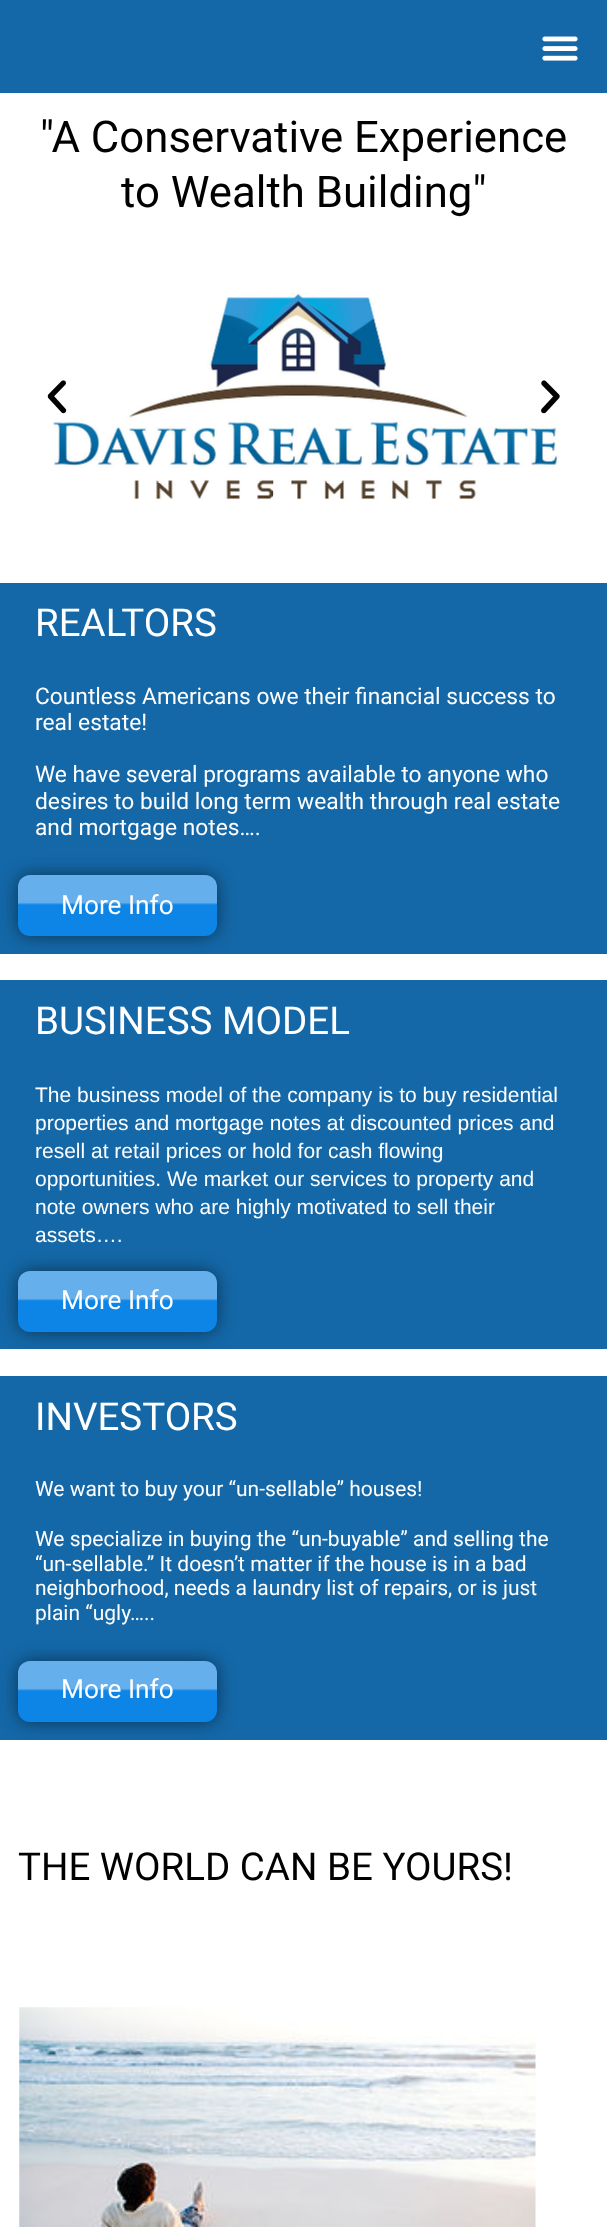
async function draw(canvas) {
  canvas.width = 607
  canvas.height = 2227
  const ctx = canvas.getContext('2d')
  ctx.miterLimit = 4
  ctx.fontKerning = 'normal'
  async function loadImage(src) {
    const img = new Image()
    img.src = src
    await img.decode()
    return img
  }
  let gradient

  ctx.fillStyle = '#fff'
  ctx.fillRect(0, 0, 607, 2227)
  ctx.fillStyle = '#1468a8'
  ctx.fillRect(0, 0, 607, 93)
  ctx.drawImage(await loadImage('image0.png'), 542, 36, 36, 25)
  ctx.font = '43.75px Roboto'
  ctx.fillStyle = '#000'
  ctx.fillText('"A Conservative Experience', 40, 152)
  ctx.fillText('to Wealth Building"', 121, 207)
  ctx.drawImage(await loadImage('image1.png'), 53, 293, 506, 207)
  ctx.drawImage(await loadImage('image2.png'), 47, 380, 20, 34)
  ctx.drawImage(await loadImage('image3.png'), 541, 380, 19, 34)
  ctx.fillStyle = '#1468a8'
  ctx.fillRect(0, 583, 607, 371)
  ctx.font = '38.5px Roboto'
  ctx.fillStyle = '#fff'
  ctx.fillText('REALTORS', 35, 636)
  ctx.font = '22.75px Roboto'
  ctx.fillText('Countless Americans owe their financial success to', 35, 704)
  ctx.fillText('real estate!', 35, 730)
  ctx.fillText('We have several programs available to anyone who', 35, 782)
  ctx.fillText('desires to build long term wealth through real estate', 35, 809)
  ctx.fillText('and mortgage notes….', 35, 835)
  ctx.fillStyle = '#00000080'
  ctx.filter = 'blur(9px)'
  ctx.beginPath()
  ctx.roundRect(18, 875, 199, 61, 12)
  ctx.fill()
  ctx.filter = 'none'
  gradient = ctx.createLinearGradient(117, 875, 117, 936)
  gradient.addColorStop(0.45, '#64afec')
  gradient.addColorStop(0.49, '#0d85e6')
  ctx.fillStyle = gradient
  ctx.beginPath()
  ctx.roundRect(18, 875, 199, 61, 12)
  ctx.fill()
  ctx.font = '26.25px Roboto'
  ctx.fillStyle = '#fff'
  ctx.fillText('More Info', 61, 914)
  ctx.fillStyle = '#1468a8'
  ctx.fillRect(0, 980, 607, 369)
  ctx.font = '38.5px Roboto'
  ctx.fillStyle = '#fff'
  ctx.fillText('BUSINESS MODEL', 35, 1034)
  ctx.font = '21px Liberation Sans'
  ctx.fillText('The business model of the company is to buy residential', 35, 1102)
  ctx.fillText('properties and mortgage notes at discounted prices and', 35, 1130)
  ctx.fillText('resell at retail prices or hold for cash flowing', 35, 1158)
  ctx.fillText('opportunities. We market our services to property and', 35, 1186)
  ctx.fillText('note owners who are highly motivated to sell their', 35, 1214)
  ctx.fillText('assets….', 35, 1242)
  ctx.fillStyle = '#00000080'
  ctx.filter = 'blur(9px)'
  ctx.beginPath()
  ctx.roundRect(18, 1271, 199, 61, 12)
  ctx.fill()
  ctx.filter = 'none'
  gradient = ctx.createLinearGradient(117, 1271, 117, 1332)
  gradient.addColorStop(0.45, '#64afec')
  gradient.addColorStop(0.49, '#0d85e6')
  ctx.fillStyle = gradient
  ctx.beginPath()
  ctx.roundRect(18, 1271, 199, 61, 12)
  ctx.fill()
  ctx.font = '26.25px Roboto'
  ctx.fillStyle = '#fff'
  ctx.fillText('More Info', 61, 1309)
  ctx.fillStyle = '#1468a8'
  ctx.fillRect(0, 1376, 607, 364)
  ctx.font = '38.5px Roboto'
  ctx.fillStyle = '#fff'
  ctx.fillText('INVESTORS', 35, 1430)
  ctx.font = '21px Roboto'
  ctx.fillText('We want to buy your “un-sellable” houses!', 35, 1496)
  ctx.fillText('We specialize in buying the “un-buyable” and selling the', 35, 1546)
  ctx.fillText('“un-sellable.” It doesn’t matter if the house is in a bad', 35, 1571)
  ctx.fillText('neighborhood, needs a laundry list of repairs, or is just', 35, 1595)
  ctx.fillText('plain “ugly…..', 35, 1620)
  ctx.fillStyle = '#00000080'
  ctx.filter = 'blur(9px)'
  ctx.beginPath()
  ctx.roundRect(18, 1661, 199, 61, 12)
  ctx.fill()
  ctx.filter = 'none'
  gradient = ctx.createLinearGradient(117, 1661, 117, 1722)
  gradient.addColorStop(0.45, '#64afec')
  gradient.addColorStop(0.49, '#0d85e6')
  ctx.fillStyle = gradient
  ctx.beginPath()
  ctx.roundRect(18, 1661, 199, 61, 12)
  ctx.fill()
  ctx.font = '26.25px Roboto'
  ctx.fillStyle = '#fff'
  ctx.fillText('More Info', 61, 1698)
  ctx.font = '38.5px Roboto'
  ctx.fillStyle = '#000'
  ctx.fillText('THE WORLD CAN BE YOURS!', 18, 1880)
  ctx.drawImage(await loadImage('image4.png'), 19, 2007, 517, 220)
}

draw(document.querySelector('canvas'))
